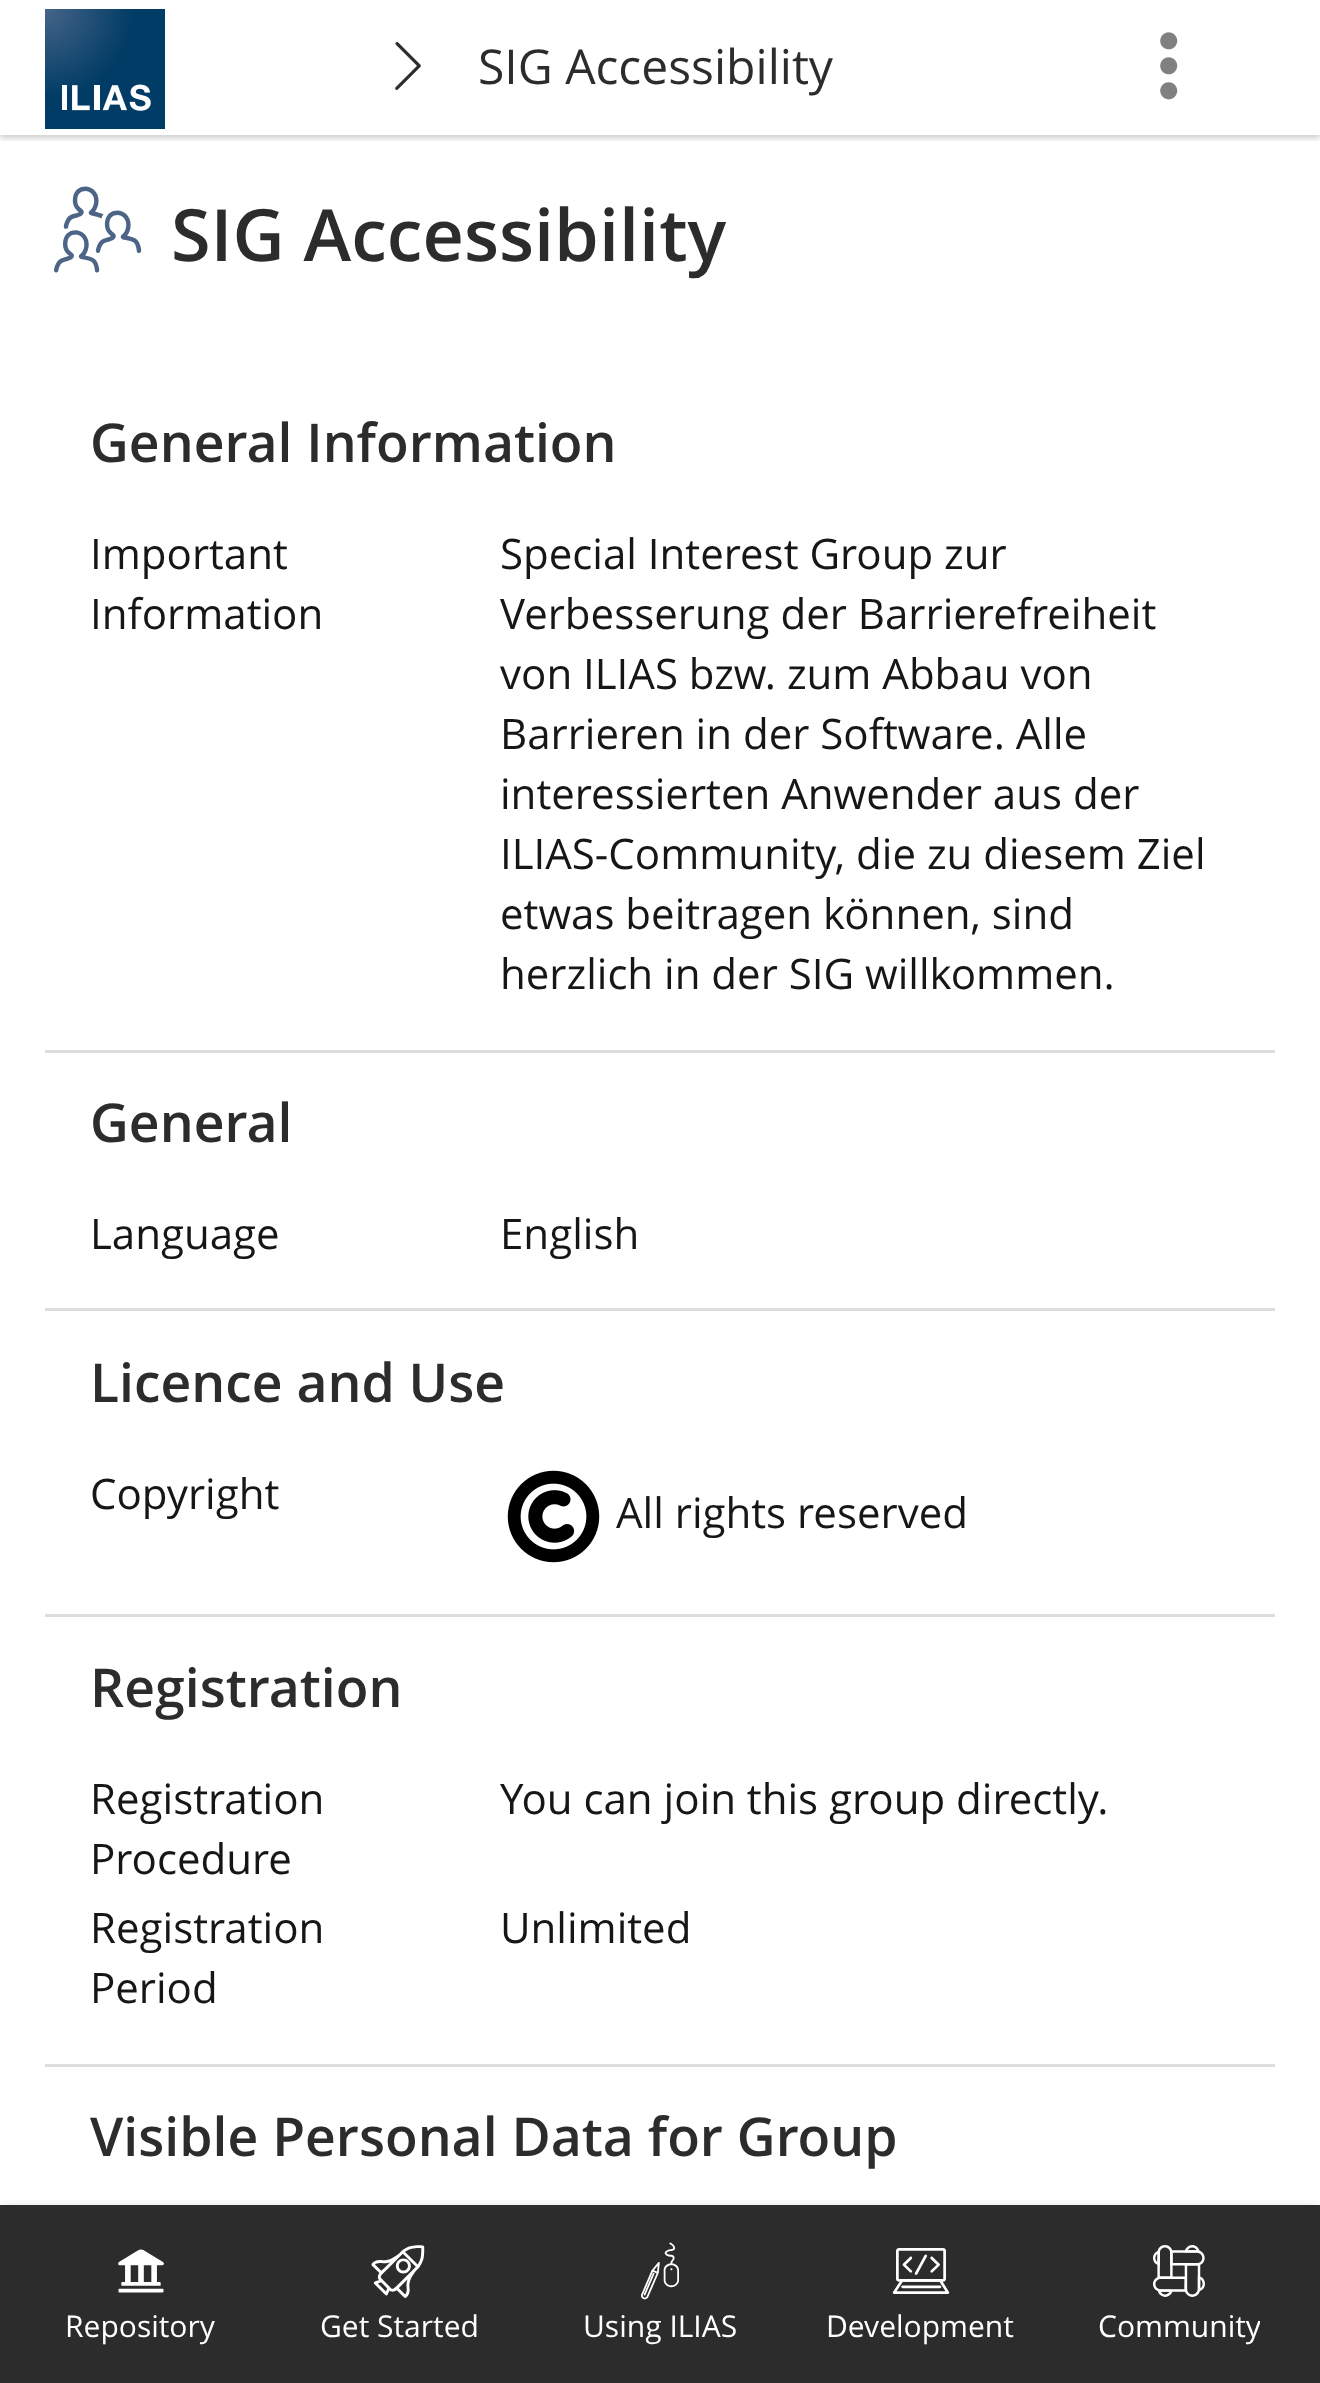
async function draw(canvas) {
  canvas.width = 1320
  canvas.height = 2383
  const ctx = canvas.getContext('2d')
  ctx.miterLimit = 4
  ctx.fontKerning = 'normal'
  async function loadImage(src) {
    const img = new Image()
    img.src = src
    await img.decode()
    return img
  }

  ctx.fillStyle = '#fff'
  ctx.fillRect(0, 0, 1320, 2383)
  ctx.save()
  ctx.beginPath()
  ctx.rect(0, 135, 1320, 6)
  ctx.clip()
  ctx.fillStyle = '#0000001a'
  ctx.filter = 'blur(3px)'
  ctx.beginPath()
  ctx.rect(0, 3, 1320, 135)
  ctx.fill()
  ctx.filter = 'none'
  ctx.filter = 'blur(3px)'
  ctx.beginPath()
  ctx.rect(0, 3, 1320, 135)
  ctx.fill()
  ctx.filter = 'none'
  ctx.restore()
  ctx.drawImage(await loadImage('image0.png'), 45, 9, 120, 120)
  ctx.drawImage(await loadImage('image1.png'), 395, 42, 26, 48)
  ctx.font = '48px Open Sans'
  ctx.fillStyle = '#2c2c2c'
  ctx.fillText('SIG Accessibility', 478, 84)
  ctx.drawImage(await loadImage('image2.png'), 1160, 32, 18, 68)
  ctx.drawImage(await loadImage('image3.png'), 54, 186, 88, 87)
  ctx.font = '600 72px Open Sans'
  ctx.fillText('SIG Accessibility', 171, 261)
  ctx.font = '600 53.5px Open Sans'
  ctx.fillText('General Information', 90, 462)
  ctx.font = '42px Open Sans'
  ctx.fillStyle = '#161616'
  ctx.fillText('Important', 90, 569)
  ctx.fillText('Information', 90, 629)
  ctx.fillText('Special Interest Group zur', 500, 569)
  ctx.fillText('Verbesserung der Barrierefreiheit', 500, 629)
  ctx.fillText('von ILIAS bzw. zum Abbau von', 500, 689)
  ctx.fillText('Barrieren in der Software. Alle', 500, 749)
  ctx.fillText('interessierten Anwender aus der', 500, 809)
  ctx.fillText('ILIAS-Community, die zu diesem Ziel', 500, 869)
  ctx.fillText('etwas beitragen können, sind', 500, 929)
  ctx.fillText('herzlich in der SIG willkommen.', 500, 989)
  ctx.fillStyle = '#ddd'
  ctx.fillRect(45, 1050, 1230, 3)
  ctx.font = '600 53.5px Open Sans'
  ctx.fillStyle = '#2c2c2c'
  ctx.fillText('General', 90, 1142)
  ctx.font = '42px Open Sans'
  ctx.fillStyle = '#161616'
  ctx.fillText('Language', 90, 1249)
  ctx.fillText('English', 500, 1249)
  ctx.fillStyle = '#ddd'
  ctx.fillRect(45, 1308, 1230, 3)
  ctx.font = '600 53.5px Open Sans'
  ctx.fillStyle = '#2c2c2c'
  ctx.fillText('Licence and Use', 90, 1402)
  ctx.font = '42px Open Sans'
  ctx.fillStyle = '#161616'
  ctx.fillText('Copyright', 90, 1509)
  ctx.drawImage(await loadImage('image4.png'), 507, 1470, 93, 93)
  ctx.fillText('All rights reserved', 616, 1528)
  ctx.fillStyle = '#ddd'
  ctx.fillRect(45, 1614, 1230, 3)
  ctx.font = '600 53.5px Open Sans'
  ctx.fillStyle = '#2c2c2c'
  ctx.fillText('Registration', 90, 1707)
  ctx.font = '42px Open Sans'
  ctx.fillStyle = '#161616'
  ctx.fillText('Registration', 90, 1814)
  ctx.fillText('Procedure', 90, 1874)
  ctx.fillText('You can join this group directly.', 500, 1814)
  ctx.fillText('Registration', 90, 1943)
  ctx.fillText('Period', 90, 2003)
  ctx.fillText('Unlimited', 500, 1943)
  ctx.fillStyle = '#ddd'
  ctx.fillRect(45, 2064, 1230, 3)
  ctx.font = '600 53.5px Open Sans'
  ctx.fillStyle = '#2c2c2c'
  ctx.fillText('Visible Personal Data for Group', 90, 2156)
  ctx.fillRect(0, 2205, 1320, 178)
  ctx.save()
  ctx.beginPath()
  ctx.rect(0, 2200, 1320, 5)
  ctx.clip()
  ctx.fillStyle = '#0000001a'
  ctx.filter = 'blur(6px)'
  ctx.beginPath()
  ctx.rect(0, 2205, 1320, 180)
  ctx.fill()
  ctx.filter = 'none'
  ctx.restore()
  ctx.drawImage(await loadImage('image5.png'), 118, 2249, 46, 44)
  ctx.font = '30px Open Sans'
  ctx.fillStyle = '#fff'
  ctx.fillText('Repository', 65, 2337)
  ctx.drawImage(await loadImage('image6.png'), 371, 2245, 54, 53)
  ctx.fillText('Get Started', 320, 2337)
  ctx.drawImage(await loadImage('image7.png'), 641, 2242, 38, 58)
  ctx.fillText('Using ILIAS', 583, 2337)
  ctx.drawImage(await loadImage('image8.png'), 892, 2248, 58, 46)
  ctx.fillText('Development', 826, 2337)
  ctx.drawImage(await loadImage('image9.png'), 1153, 2245, 52, 52)
  ctx.save()
  ctx.beginPath()
  ctx.rect(1098, 2304, 162, 45)
  ctx.clip()
  ctx.fillText('Community', 1098, 2337)
  ctx.restore()
}

draw(document.querySelector('canvas'))
